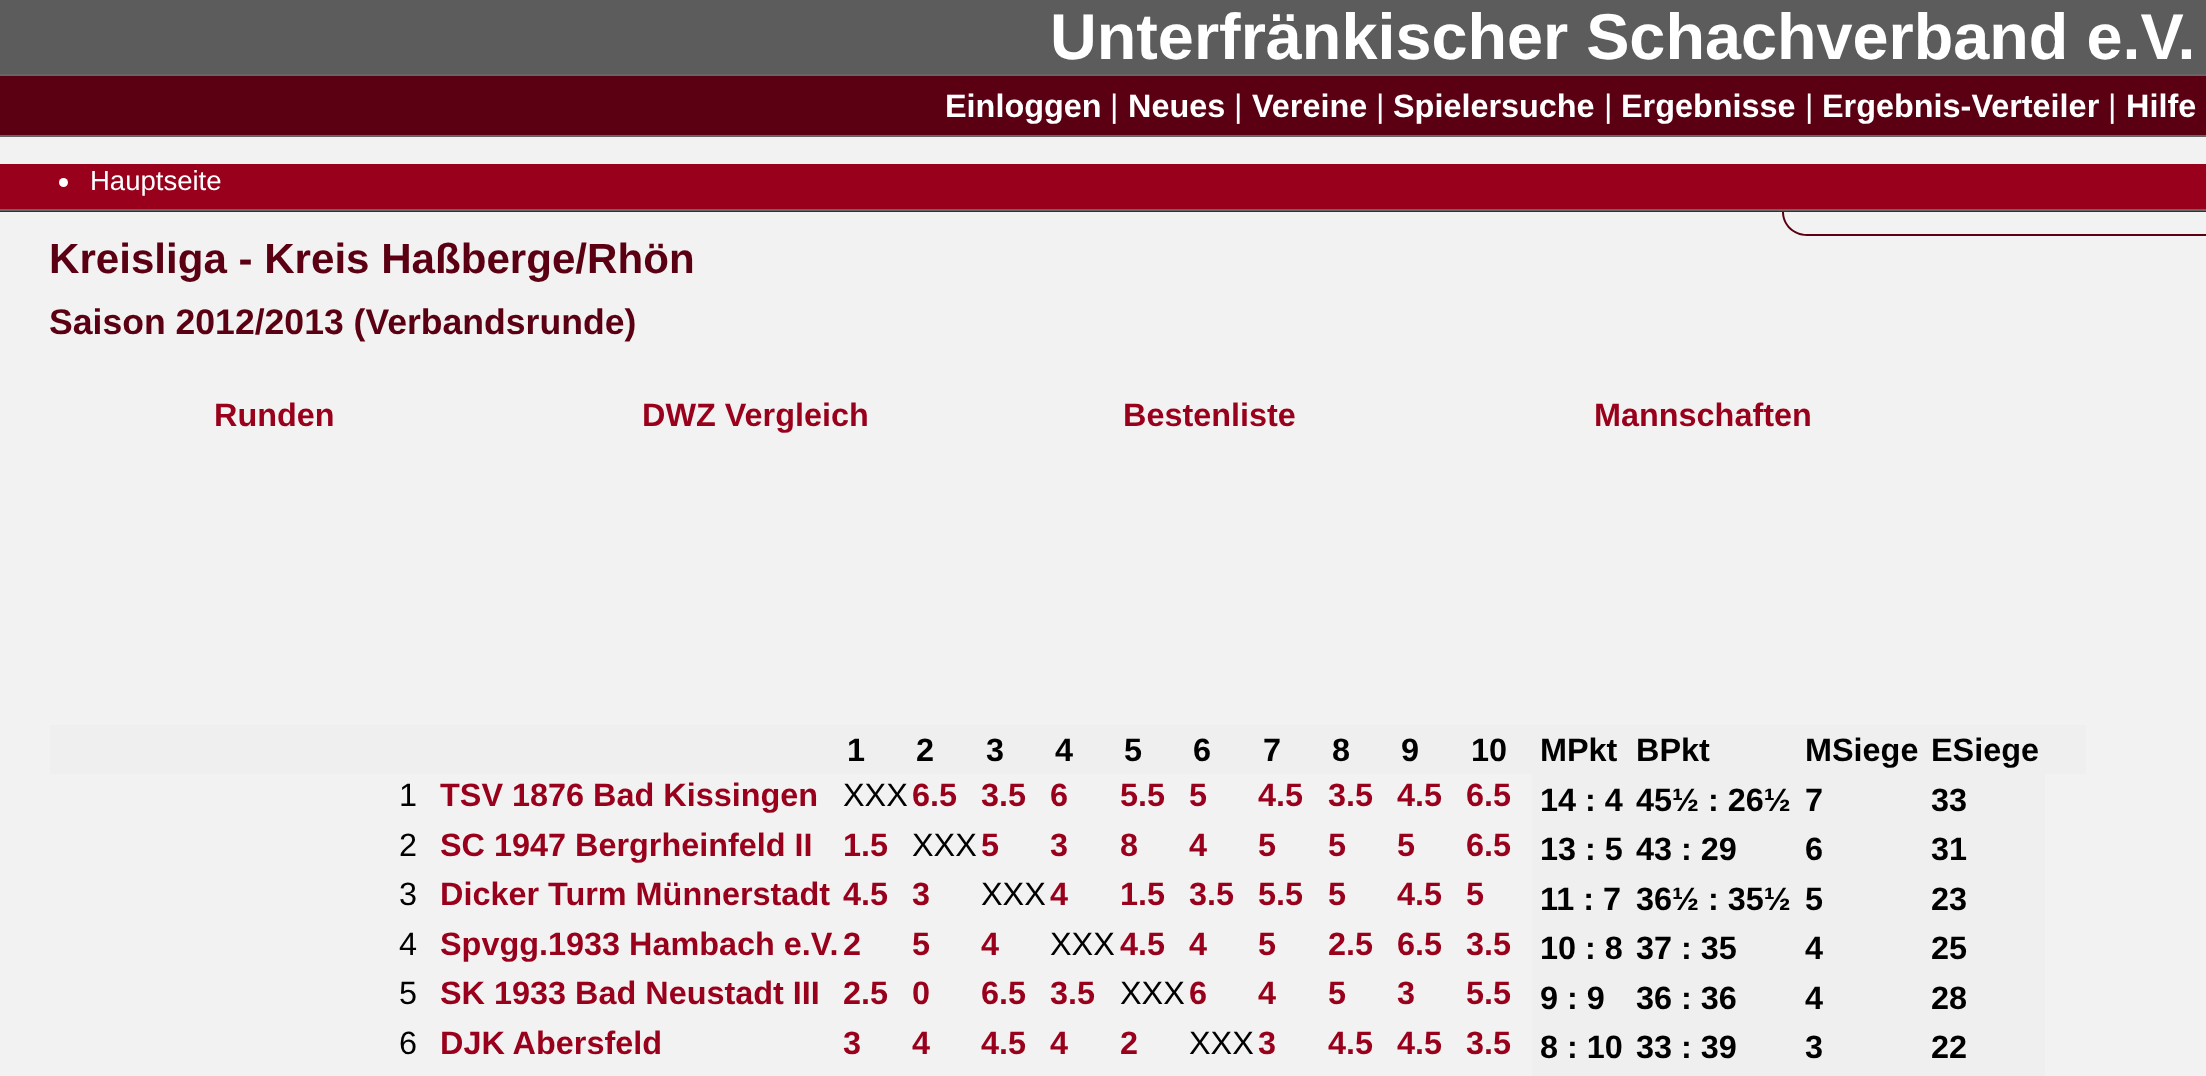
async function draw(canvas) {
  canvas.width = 2206
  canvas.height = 1076
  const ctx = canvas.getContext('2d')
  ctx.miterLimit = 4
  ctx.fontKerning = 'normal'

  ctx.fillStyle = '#f2f2f2'
  ctx.fillRect(0, 0, 2206, 1076)
  ctx.fillStyle = '#5c5c5c'
  ctx.fillRect(0, 0, 2206, 74)
  ctx.font = 'bold 64.75px Liberation Sans'
  ctx.fillStyle = '#fff'
  ctx.fillText('Unterfränkischer Schachverband e.V.', 1050, 59)
  ctx.fillStyle = '#5b0013'
  ctx.fillRect(0, 76, 2206, 59)
  ctx.fillStyle = '#666'
  ctx.fillRect(0, 74, 2206, 2)
  ctx.fillRect(0, 135, 2206, 2)
  ctx.font = 'bold 32.4px Liberation Sans'
  ctx.fillStyle = '#fff'
  ctx.fillText('Einloggen', 945, 117)
  ctx.font = '32.4px Liberation Sans'
  ctx.fillText('|', 1110, 117)
  ctx.font = 'bold 32.4px Liberation Sans'
  ctx.fillText('Neues', 1128, 117)
  ctx.font = '32.4px Liberation Sans'
  ctx.fillText('|', 1234, 117)
  ctx.font = 'bold 32.4px Liberation Sans'
  ctx.fillText('Vereine', 1252, 117)
  ctx.font = '32.4px Liberation Sans'
  ctx.fillText('|', 1376, 117)
  ctx.font = 'bold 32.4px Liberation Sans'
  ctx.fillText('Spielersuche', 1393, 117)
  ctx.font = '32.4px Liberation Sans'
  ctx.fillText('|', 1604, 117)
  ctx.font = 'bold 32.4px Liberation Sans'
  ctx.fillText('Ergebnisse', 1621, 117)
  ctx.font = '32.4px Liberation Sans'
  ctx.fillText('|', 1805, 117)
  ctx.font = 'bold 32.4px Liberation Sans'
  ctx.fillText('Ergebnis-Verteiler', 1822, 117)
  ctx.font = '32.4px Liberation Sans'
  ctx.fillText('|', 2108, 117)
  ctx.font = 'bold 32.4px Liberation Sans'
  ctx.fillText('Hilfe', 2126, 117)
  ctx.fillStyle = '#99001c'
  ctx.fillRect(0, 164, 2206, 48)
  ctx.fillStyle = '#666'
  ctx.fillRect(0, 209, 2206, 2)
  ctx.fillStyle = '#fff'
  ctx.beginPath()
  ctx.arc(63.5, 182.5, 4.5, 0, 2 * Math.PI)
  ctx.fill()
  ctx.font = '27.5px Liberation Sans'
  ctx.fillText('Hauptseite', 90, 190)
  ctx.fillStyle = '#5b0013'
  ctx.beginPath()
  ctx.moveTo(1782, 212)
  ctx.lineTo(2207, 212)
  ctx.lineTo(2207, 236)
  ctx.lineTo(1807, 236)
  ctx.bezierCurveTo(1793, 236, 1782, 225, 1782, 212)
  ctx.closePath()
  ctx.moveTo(1784, 212)
  ctx.lineTo(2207, 212)
  ctx.lineTo(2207, 234)
  ctx.lineTo(1807, 234)
  ctx.bezierCurveTo(1794, 234, 1784, 224, 1784, 212)
  ctx.closePath()
  ctx.fill('evenodd')
  ctx.font = 'bold 42.1px Liberation Sans'
  ctx.fillText('Kreisliga - Kreis Haßberge/Rhön', 49, 273)
  ctx.font = 'bold 35.6px Liberation Sans'
  ctx.fillText('Saison 2012/2013 (Verbandsrunde)', 49, 334)
  ctx.font = 'bold 32.4px Liberation Sans'
  ctx.fillStyle = '#99001c'
  ctx.fillText('Runden', 214, 426)
  ctx.fillText('DWZ Vergleich', 642, 426)
  ctx.fillText('Bestenliste', 1123, 426)
  ctx.fillText('Mannschaften', 1594, 426)
  ctx.fillStyle = '#efefef'
  ctx.fillRect(50, 725, 2036, 49)
  ctx.fillStyle = '#000'
  ctx.fillText('1', 847, 761)
  ctx.fillText('2', 916, 761)
  ctx.fillText('3', 986, 761)
  ctx.fillText('4', 1055, 761)
  ctx.fillText('5', 1124, 761)
  ctx.fillText('6', 1193, 761)
  ctx.fillText('7', 1263, 761)
  ctx.fillText('8', 1332, 761)
  ctx.fillText('9', 1401, 761)
  ctx.fillText('10', 1471, 761)
  ctx.fillText('MPkt', 1540, 761)
  ctx.fillText('BPkt', 1636, 761)
  ctx.fillText('MSiege', 1805, 761)
  ctx.fillText('ESiege', 1931, 761)
  ctx.font = '32.4px Liberation Sans'
  ctx.fillText('1', 399, 806)
  ctx.font = 'bold 32.4px Liberation Sans'
  ctx.fillStyle = '#99001c'
  ctx.fillText('TSV 1876 Bad Kissingen', 440, 806)
  ctx.font = '32.4px Liberation Sans'
  ctx.fillStyle = '#000'
  ctx.fillText('XXX', 843, 806)
  ctx.font = 'bold 32.4px Liberation Sans'
  ctx.fillStyle = '#99001c'
  ctx.fillText('6.5', 912, 806)
  ctx.fillText('3.5', 981, 806)
  ctx.fillText('6', 1050, 806)
  ctx.fillText('5.5', 1120, 806)
  ctx.fillText('5', 1189, 806)
  ctx.fillText('4.5', 1258, 806)
  ctx.fillText('3.5', 1328, 806)
  ctx.fillText('4.5', 1397, 806)
  ctx.fillText('6.5', 1466, 806)
  ctx.fillStyle = '#efefef'
  ctx.fillRect(1532, 774, 513, 50)
  ctx.fillStyle = '#000'
  ctx.fillText('14 : 4', 1540, 811)
  ctx.fillText('45½ : 26½', 1636, 811)
  ctx.fillText('7', 1805, 811)
  ctx.fillText('33', 1931, 811)
  ctx.font = '32.4px Liberation Sans'
  ctx.fillText('2', 399, 856)
  ctx.font = 'bold 32.4px Liberation Sans'
  ctx.fillStyle = '#99001c'
  ctx.fillText('SC 1947 Bergrheinfeld II', 440, 856)
  ctx.fillText('1.5', 843, 856)
  ctx.font = '32.4px Liberation Sans'
  ctx.fillStyle = '#000'
  ctx.fillText('XXX', 912, 856)
  ctx.font = 'bold 32.4px Liberation Sans'
  ctx.fillStyle = '#99001c'
  ctx.fillText('5', 981, 856)
  ctx.fillText('3', 1050, 856)
  ctx.fillText('8', 1120, 856)
  ctx.fillText('4', 1189, 856)
  ctx.fillText('5', 1258, 856)
  ctx.fillText('5', 1328, 856)
  ctx.fillText('5', 1397, 856)
  ctx.fillText('6.5', 1466, 856)
  ctx.fillStyle = '#efefef'
  ctx.fillRect(1532, 824, 513, 49)
  ctx.fillStyle = '#000'
  ctx.fillText('13 : 5', 1540, 860)
  ctx.fillText('43 : 29', 1636, 860)
  ctx.fillText('6', 1805, 860)
  ctx.fillText('31', 1931, 860)
  ctx.font = '32.4px Liberation Sans'
  ctx.fillText('3', 399, 905)
  ctx.font = 'bold 32.4px Liberation Sans'
  ctx.fillStyle = '#99001c'
  ctx.fillText('Dicker Turm Münnerstadt', 440, 905)
  ctx.fillText('4.5', 843, 905)
  ctx.fillText('3', 912, 905)
  ctx.font = '32.4px Liberation Sans'
  ctx.fillStyle = '#000'
  ctx.fillText('XXX', 981, 905)
  ctx.font = 'bold 32.4px Liberation Sans'
  ctx.fillStyle = '#99001c'
  ctx.fillText('4', 1050, 905)
  ctx.fillText('1.5', 1120, 905)
  ctx.fillText('3.5', 1189, 905)
  ctx.fillText('5.5', 1258, 905)
  ctx.fillText('5', 1328, 905)
  ctx.fillText('4.5', 1397, 905)
  ctx.fillText('5', 1466, 905)
  ctx.fillStyle = '#efefef'
  ctx.fillRect(1532, 873, 513, 50)
  ctx.fillStyle = '#000'
  ctx.fillText('11 : 7', 1540, 910)
  ctx.fillText('36½ : 35½', 1636, 910)
  ctx.fillText('5', 1805, 910)
  ctx.fillText('23', 1931, 910)
  ctx.font = '32.4px Liberation Sans'
  ctx.fillText('4', 399, 955)
  ctx.font = 'bold 32.4px Liberation Sans'
  ctx.fillStyle = '#99001c'
  ctx.fillText('Spvgg.1933 Hambach e.V.', 440, 955)
  ctx.fillText('2', 843, 955)
  ctx.fillText('5', 912, 955)
  ctx.fillText('4', 981, 955)
  ctx.font = '32.4px Liberation Sans'
  ctx.fillStyle = '#000'
  ctx.fillText('XXX', 1050, 955)
  ctx.font = 'bold 32.4px Liberation Sans'
  ctx.fillStyle = '#99001c'
  ctx.fillText('4.5', 1120, 955)
  ctx.fillText('4', 1189, 955)
  ctx.fillText('5', 1258, 955)
  ctx.fillText('2.5', 1328, 955)
  ctx.fillText('6.5', 1397, 955)
  ctx.fillText('3.5', 1466, 955)
  ctx.fillStyle = '#efefef'
  ctx.fillRect(1532, 923, 513, 49)
  ctx.fillStyle = '#000'
  ctx.fillText('10 : 8', 1540, 959)
  ctx.fillText('37 : 35', 1636, 959)
  ctx.fillText('4', 1805, 959)
  ctx.fillText('25', 1931, 959)
  ctx.font = '32.4px Liberation Sans'
  ctx.fillText('5', 399, 1004)
  ctx.font = 'bold 32.4px Liberation Sans'
  ctx.fillStyle = '#99001c'
  ctx.fillText('SK 1933 Bad Neustadt III', 440, 1004)
  ctx.fillText('2.5', 843, 1004)
  ctx.fillText('0', 912, 1004)
  ctx.fillText('6.5', 981, 1004)
  ctx.fillText('3.5', 1050, 1004)
  ctx.font = '32.4px Liberation Sans'
  ctx.fillStyle = '#000'
  ctx.fillText('XXX', 1120, 1004)
  ctx.font = 'bold 32.4px Liberation Sans'
  ctx.fillStyle = '#99001c'
  ctx.fillText('6', 1189, 1004)
  ctx.fillText('4', 1258, 1004)
  ctx.fillText('5', 1328, 1004)
  ctx.fillText('3', 1397, 1004)
  ctx.fillText('5.5', 1466, 1004)
  ctx.fillStyle = '#efefef'
  ctx.fillRect(1532, 972, 513, 50)
  ctx.fillStyle = '#000'
  ctx.fillText('9 : 9', 1540, 1009)
  ctx.fillText('36 : 36', 1636, 1009)
  ctx.fillText('4', 1805, 1009)
  ctx.fillText('28', 1931, 1009)
  ctx.font = '32.4px Liberation Sans'
  ctx.fillText('6', 399, 1054)
  ctx.font = 'bold 32.4px Liberation Sans'
  ctx.fillStyle = '#99001c'
  ctx.fillText('DJK Abersfeld', 440, 1054)
  ctx.fillText('3', 843, 1054)
  ctx.fillText('4', 912, 1054)
  ctx.fillText('4.5', 981, 1054)
  ctx.fillText('4', 1050, 1054)
  ctx.fillText('2', 1120, 1054)
  ctx.font = '32.4px Liberation Sans'
  ctx.fillStyle = '#000'
  ctx.fillText('XXX', 1189, 1054)
  ctx.font = 'bold 32.4px Liberation Sans'
  ctx.fillStyle = '#99001c'
  ctx.fillText('3', 1258, 1054)
  ctx.fillText('4.5', 1328, 1054)
  ctx.fillText('4.5', 1397, 1054)
  ctx.fillText('3.5', 1466, 1054)
  ctx.fillStyle = '#efefef'
  ctx.fillRect(1532, 1022, 513, 49)
  ctx.fillStyle = '#000'
  ctx.fillText('8 : 10', 1540, 1058)
  ctx.fillText('33 : 39', 1636, 1058)
  ctx.fillText('3', 1805, 1058)
  ctx.fillText('22', 1931, 1058)
  ctx.fillStyle = '#efefef'
  ctx.fillRect(1532, 1071, 513, 5)
}

draw(document.querySelector('canvas'))
